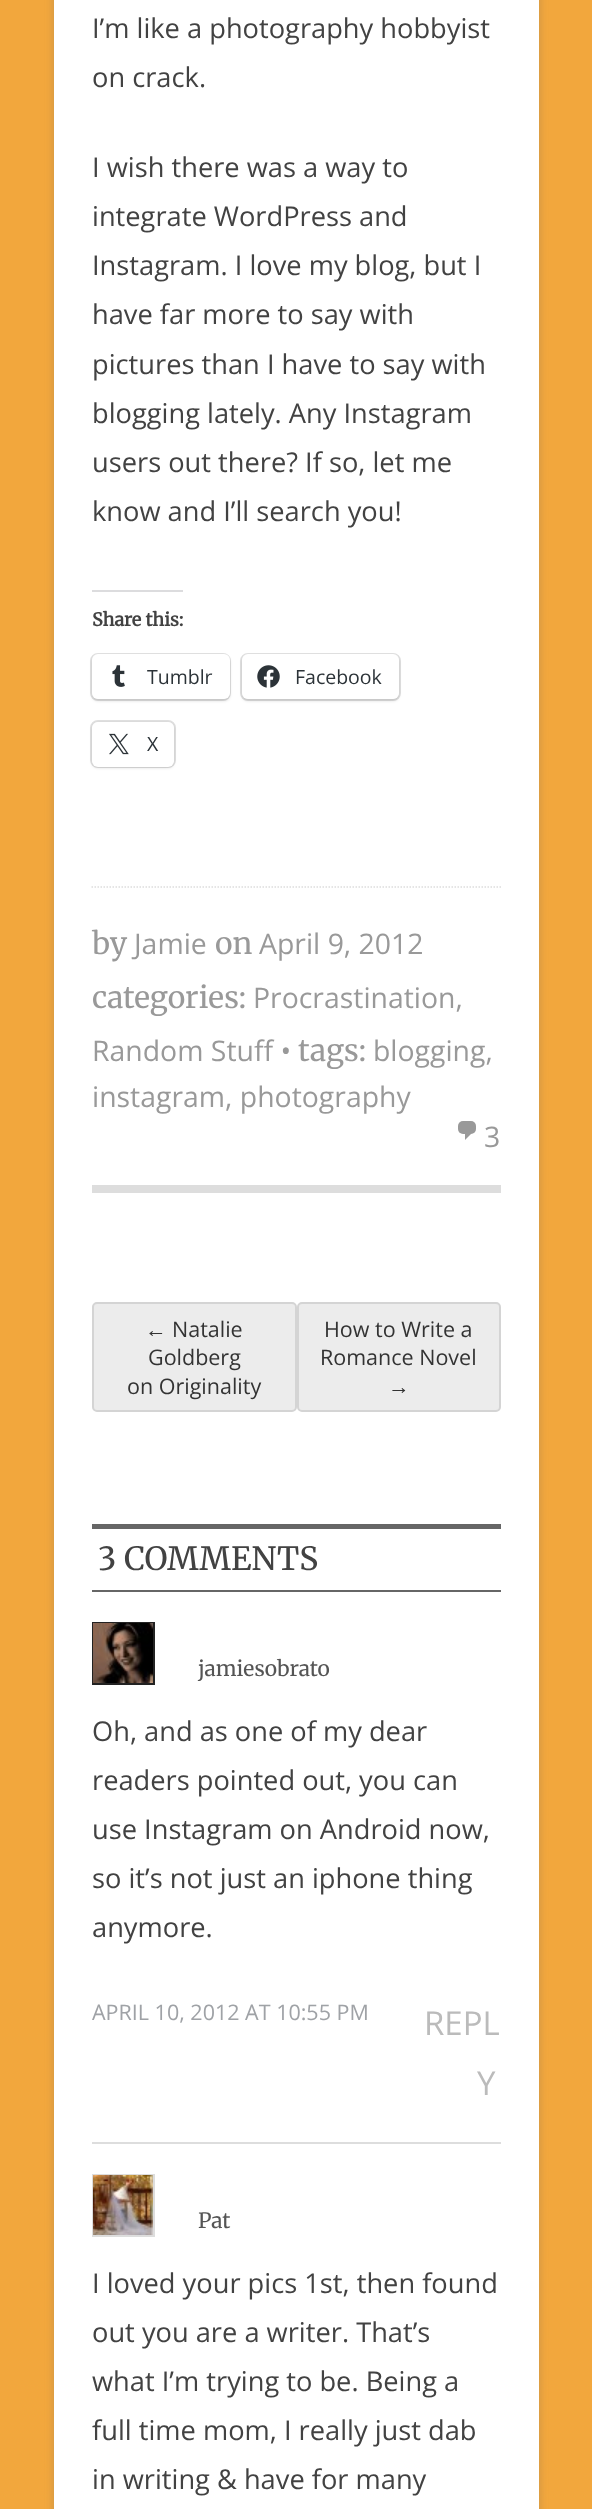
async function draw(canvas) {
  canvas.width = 592
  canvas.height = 2509
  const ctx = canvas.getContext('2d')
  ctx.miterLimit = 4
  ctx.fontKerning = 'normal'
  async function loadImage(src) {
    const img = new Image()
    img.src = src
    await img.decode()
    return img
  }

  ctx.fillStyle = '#f2a73d'
  ctx.fillRect(0, 0, 592, 2509)
  ctx.fillStyle = '#6464644d'
  ctx.filter = 'blur(4.5px)'
  ctx.beginPath()
  ctx.rect(54, -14, 485, 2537)
  ctx.fill()
  ctx.filter = 'none'
  ctx.fillStyle = '#fff'
  ctx.fillRect(54, 0, 485, 2509)
  ctx.fillStyle = '#ddd'
  ctx.fillRect(92, 1185, 409, 8)
  ctx.font = '27.25px Open Sans'
  ctx.fillStyle = '#424242'
  ctx.fillText('I’m like a photography hobbyist', 92, 38)
  ctx.fillText('on crack.', 92, 87)
  ctx.fillText('I wish there was a way to', 92, 177)
  ctx.fillText('integrate WordPress and', 92, 226)
  ctx.fillText('Instagram. I love my blog, but I', 92, 275)
  ctx.fillText('have far more to say with', 92, 324)
  ctx.fillText('pictures than I have to say with', 92, 374)
  ctx.fillText('blogging lately. Any Instagram', 92, 423)
  ctx.fillText('users out there? If so, let me', 92, 472)
  ctx.fillText('know and I’ll search you!', 92, 521)
  ctx.fillStyle = '#dcdcde'
  ctx.fillRect(92, 590, 91, 2)
  ctx.font = 'bold 18px Merriweather'
  ctx.fillStyle = '#424242'
  ctx.fillText('Share this:', 92, 626)
  ctx.beginPath()
  ctx.roundRect(91, 654, 139, 46, 7)
  ctx.strokeStyle = '#e0e0e0'
  ctx.lineWidth = 2
  ctx.stroke()
  ctx.fillStyle = '#0000001f'
  ctx.filter = 'blur(1.5px)'
  ctx.beginPath()
  ctx.roundRect(92, 656, 138, 45, 6)
  ctx.fill()
  ctx.filter = 'none'
  ctx.fillStyle = '#fff'
  ctx.beginPath()
  ctx.roundRect(92, 654, 138, 45, 6)
  ctx.fill()
  ctx.drawImage(await loadImage('image0.png'), 112, 665, 13, 22)
  ctx.font = '19.5px Open Sans'
  ctx.fillStyle = '#2c3338'
  ctx.fillText('Tumblr', 147, 684)
  ctx.beginPath()
  ctx.roundRect(241, 654, 159, 46, 7)
  ctx.stroke()
  ctx.fillStyle = '#0000001f'
  ctx.filter = 'blur(1.5px)'
  ctx.beginPath()
  ctx.roundRect(242, 656, 157, 45, 6)
  ctx.fill()
  ctx.filter = 'none'
  ctx.fillStyle = '#fff'
  ctx.beginPath()
  ctx.roundRect(242, 654, 157, 45, 6)
  ctx.fill()
  ctx.drawImage(await loadImage('image1.png'), 257, 665, 23, 23)
  ctx.fillStyle = '#2c3338'
  ctx.fillText('Facebook', 295, 684)
  ctx.beginPath()
  ctx.roundRect(91, 721, 84, 46, 7)
  ctx.stroke()
  ctx.fillStyle = '#0000001f'
  ctx.filter = 'blur(1.5px)'
  ctx.beginPath()
  ctx.roundRect(92, 723, 82, 45, 6)
  ctx.fill()
  ctx.filter = 'none'
  ctx.fillStyle = '#fff'
  ctx.beginPath()
  ctx.roundRect(92, 722, 82, 45, 6)
  ctx.fill()
  ctx.drawImage(await loadImage('image2.png'), 109, 733, 20, 22)
  ctx.fillStyle = '#2c3338'
  ctx.fillText('X', 147, 751)
  ctx.beginPath()
  ctx.moveTo(91.5, 887)
  ctx.lineTo(501, 887)
  ctx.strokeStyle = '#ddd'
  ctx.lineWidth = 1.5
  ctx.setLineDash([1.5, 1.5])
  ctx.stroke()
  ctx.font = '300 30px Merriweather'
  ctx.fillStyle = '#999'
  ctx.fillText('by', 92, 954)
  ctx.font = '28.4px Open Sans'
  ctx.fillText('Jamie', 134, 954)
  ctx.font = '300 30px Merriweather'
  ctx.fillText('on', 215, 954)
  ctx.font = '28.4px Open Sans'
  ctx.fillText('April 9, 2012', 259, 954)
  ctx.font = '300 30px Merriweather'
  ctx.fillText('categories:', 92, 1008)
  ctx.font = '28.4px Open Sans'
  ctx.fillText('Procrastination,', 253, 1008)
  ctx.fillText('Random Stuff •', 92, 1061)
  ctx.font = '300 30px Merriweather'
  ctx.fillText('tags:', 298, 1061)
  ctx.font = '28.4px Open Sans'
  ctx.fillText('blogging,', 373, 1061)
  ctx.fillText('instagram, photography', 92, 1107)
  ctx.beginPath()
  ctx.moveTo(465, 1140)
  ctx.lineTo(465, 1128)
  ctx.lineTo(471, 1134)
  ctx.closePath()
  ctx.fill()
  ctx.beginPath()
  ctx.roundRect(458, 1121, 18, 13, 5)
  ctx.fill()
  ctx.fillText('3', 484, 1147)
  ctx.fillStyle = '#ececec'
  ctx.beginPath()
  ctx.roundRect(93, 1303, 203, 108, 4)
  ctx.fill()
  ctx.strokeStyle = '#d4d4d4'
  ctx.lineWidth = 2
  ctx.setLineDash([])
  ctx.stroke()
  ctx.font = '21.5px Liberation Sans'
  ctx.fillStyle = '#333'
  ctx.fillText('←', 145, 1337)
  ctx.font = '21.5px Open Sans'
  ctx.fillText('Natalie', 172, 1337)
  ctx.fillText('Goldberg', 148, 1365)
  ctx.fillText('on Originality', 127, 1394)
  ctx.fillStyle = '#ececec'
  ctx.beginPath()
  ctx.roundRect(298, 1303, 202, 108, 4)
  ctx.fill()
  ctx.stroke()
  ctx.fillStyle = '#333'
  ctx.fillText('How to Write a', 324, 1337)
  ctx.fillText('Romance Novel', 320, 1365)
  ctx.font = '21.5px Liberation Sans'
  ctx.fillText('→', 388, 1394)
  ctx.fillStyle = '#666'
  ctx.fillRect(92, 1524, 409, 5)
  ctx.fillRect(92, 1590, 409, 2)
  ctx.font = '300 32px Merriweather'
  ctx.fillStyle = '#424242'
  ctx.fillText('3 COMMENTS', 98, 1570)
  ctx.fillStyle = '#ddd'
  ctx.fillRect(92, 2142, 409, 2)
  ctx.strokeStyle = '#222'
  ctx.strokeRect(93, 1623, 61, 61)
  ctx.drawImage(await loadImage('image3.png'), 93, 1623, 60, 60)
  ctx.font = '300 21px Merriweather'
  ctx.fillStyle = '#555'
  ctx.fillText('jamiesobrato', 198, 1676)
  ctx.font = '27.25px Open Sans'
  ctx.fillStyle = '#424242'
  ctx.fillText('Oh, and as one of my dear', 92, 1741)
  ctx.fillText('readers pointed out, you can', 92, 1790)
  ctx.fillText('use Instagram on Android now,', 92, 1839)
  ctx.fillText('so it’s not just an iphone thing', 92, 1888)
  ctx.fillText('anymore.', 92, 1937)
  ctx.font = '21.5px Open Sans'
  ctx.fillStyle = '#9fa2a6'
  ctx.fillText('APRIL 10, 2012 AT 10:55 PM', 92, 2020)
  ctx.font = '33px Open Sans'
  ctx.fillStyle = '#bbb'
  ctx.fillText('REPL', 424, 2035)
  ctx.fillText('Y', 477, 2095)
  ctx.strokeStyle = '#ddd'
  ctx.strokeRect(93, 2175, 61, 61)
  ctx.drawImage(await loadImage('image4.png'), 93, 2175, 60, 60)
  ctx.font = '300 21px Merriweather'
  ctx.fillStyle = '#555'
  ctx.fillText('Pat', 198, 2228)
  ctx.font = '27.25px Open Sans'
  ctx.fillStyle = '#424242'
  ctx.fillText('I loved your pics 1st, then found', 92, 2293)
  ctx.fillText('out you are a writer. That’s', 92, 2342)
  ctx.fillText('what I’m trying to be. Being a', 92, 2391)
  ctx.fillText('full time mom, I really just dab', 92, 2440)
  ctx.fillText('in writing & have for many', 92, 2489)
}

draw(document.querySelector('canvas'))
